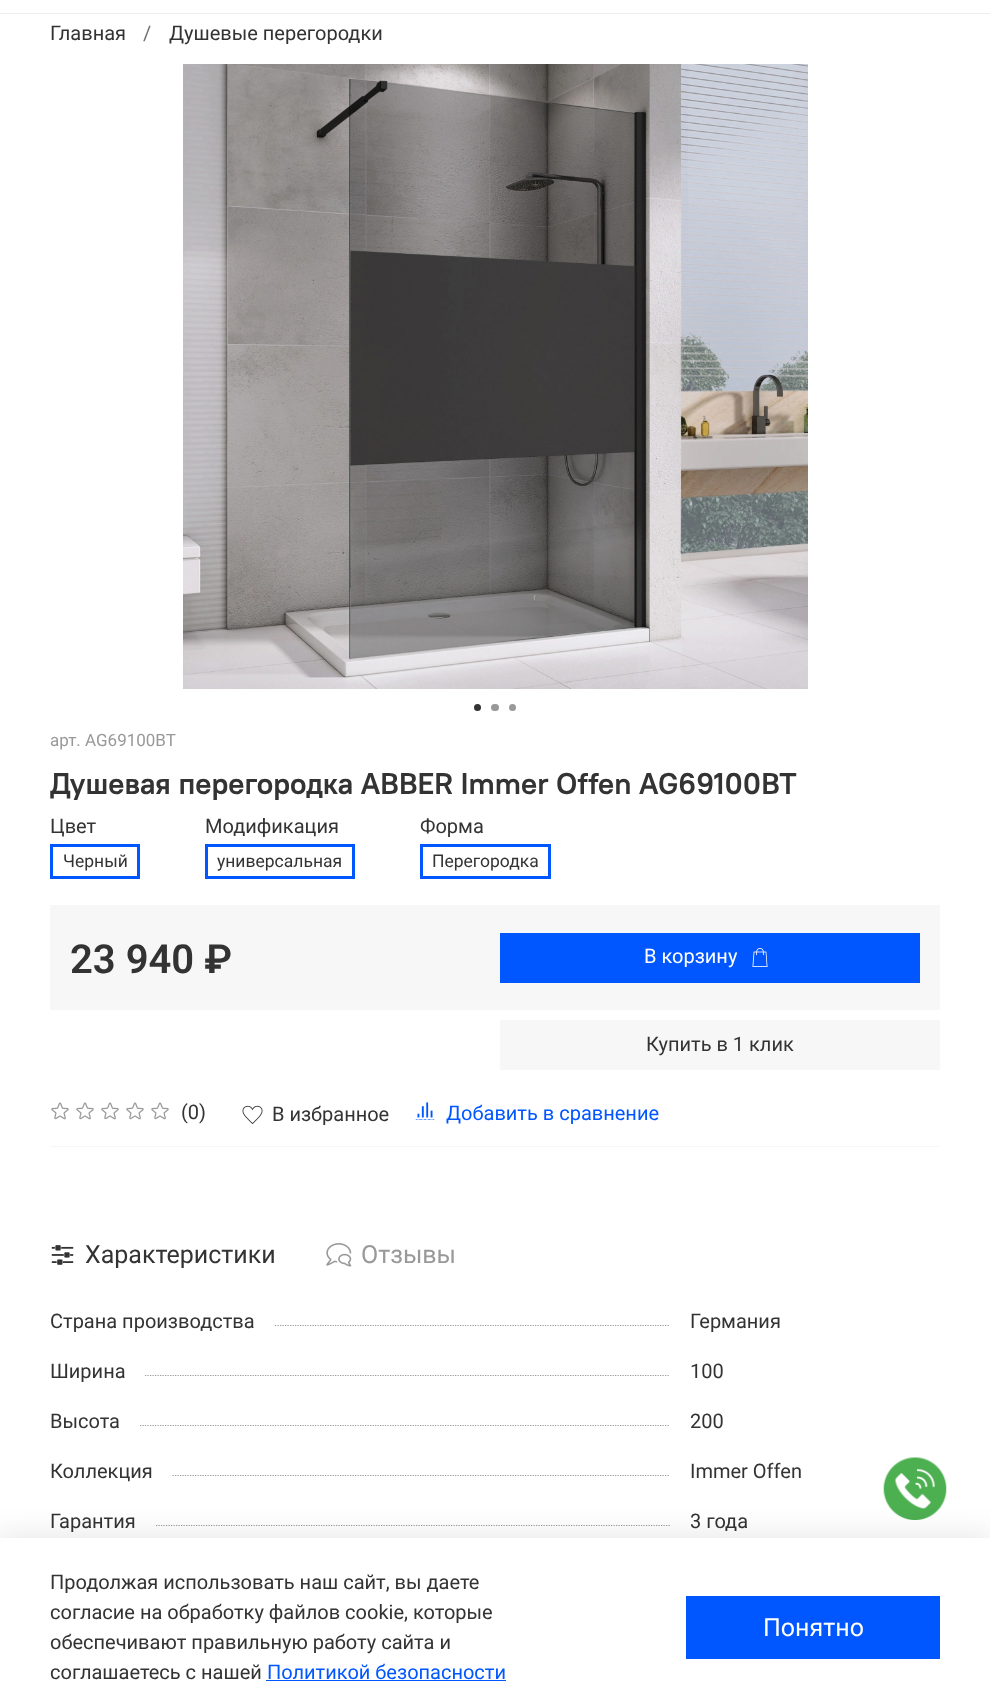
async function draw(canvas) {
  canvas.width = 990
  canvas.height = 1707
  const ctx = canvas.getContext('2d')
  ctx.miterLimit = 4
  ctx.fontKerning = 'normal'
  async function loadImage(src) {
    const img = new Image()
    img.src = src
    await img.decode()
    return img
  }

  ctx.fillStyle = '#fff'
  ctx.fillRect(0, 0, 990, 1707)
  ctx.fillStyle = '#ededed'
  ctx.fillRect(0, 13, 990, 1)
  ctx.font = '20px Roboto'
  ctx.fillStyle = '#333'
  ctx.fillText('Главная', 50, 40)
  ctx.fillStyle = '#707070'
  ctx.fillText('/', 143, 40)
  ctx.fillStyle = '#333'
  ctx.fillText('Душевые перегородки', 169, 40)
  ctx.drawImage(await loadImage('image0.png'), 183, 64, 625, 625)
  ctx.beginPath()
  ctx.arc(477.5, 707.5, 3.5, 0, 2 * Math.PI)
  ctx.fill()
  ctx.fillStyle = '#999'
  ctx.beginPath()
  ctx.roundRect(491, 704, 8, 7, 3.5)
  ctx.fill()
  ctx.beginPath()
  ctx.arc(512.5, 707.5, 3.5, 0, 2 * Math.PI)
  ctx.fill()
  ctx.font = '17px Roboto'
  ctx.fillText('арт. AG69100BT', 50, 746)
  ctx.font = 'bold 30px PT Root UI'
  ctx.fillStyle = '#333'
  ctx.fillText('Душевая перегородка ABBER Immer Offen AG69100BT', 50, 794)
  ctx.font = '20px Roboto'
  ctx.fillText('Цвет', 50, 833)
  ctx.strokeStyle = '#0057ff'
  ctx.lineWidth = 3
  ctx.strokeRect(51.5, 845.5, 87, 32)
  ctx.font = '17.5px Roboto'
  ctx.fillText('Черный', 63, 867)
  ctx.font = '20px Roboto'
  ctx.fillText('Модификация', 205, 833)
  ctx.strokeRect(206.5, 845.5, 147, 32)
  ctx.font = '17.5px Roboto'
  ctx.fillText('универсальная', 217, 867)
  ctx.font = '20px Roboto'
  ctx.fillText('Форма', 420, 833)
  ctx.strokeRect(421.5, 845.5, 128, 32)
  ctx.font = '17.5px Roboto'
  ctx.fillText('Перегородка', 432, 867)
  ctx.fillStyle = '#f7f7f7'
  ctx.fillRect(50, 905, 890, 105)
  ctx.font = '600 40px Roboto'
  ctx.fillStyle = '#333'
  ctx.fillText('23 940 ₽', 70, 973)
  ctx.fillStyle = '#0057ff'
  ctx.fillRect(500, 933, 420, 50)
  ctx.font = '20px Roboto'
  ctx.fillStyle = '#fff'
  ctx.fillText('В корзину', 644, 963)
  ctx.drawImage(await loadImage('image1.png'), 752, 948, 16, 19)
  ctx.fillStyle = '#f7f7f7'
  ctx.fillRect(500, 1020, 440, 50)
  ctx.fillStyle = '#333'
  ctx.fillText('Купить в 1 клик', 646, 1051)
  ctx.fillStyle = '#f7f7f7'
  ctx.fillRect(50, 1146, 890, 1)
  ctx.drawImage(await loadImage('image2.png'), 51, 1102, 18, 18)
  ctx.drawImage(await loadImage('image2.png'), 76, 1102, 18, 18)
  ctx.drawImage(await loadImage('image2.png'), 101, 1102, 18, 18)
  ctx.drawImage(await loadImage('image2.png'), 126, 1102, 18, 18)
  ctx.drawImage(await loadImage('image2.png'), 151, 1102, 18, 18)
  ctx.fillStyle = '#333'
  ctx.fillText('(0)', 181, 1119)
  ctx.drawImage(await loadImage('image3.png'), 242, 1105, 21, 20)
  ctx.fillText('В избранное', 272, 1121)
  ctx.drawImage(await loadImage('image4.png'), 415, 1102, 20, 18)
  ctx.fillStyle = '#0057ff'
  ctx.fillText('Добавить в сравнение', 446, 1120)
  ctx.drawImage(await loadImage('image5.png'), 51, 1245, 23, 20)
  ctx.font = '25px Roboto'
  ctx.fillStyle = '#333'
  ctx.fillText('Характеристики', 85, 1263)
  ctx.drawImage(await loadImage('image6.png'), 326, 1243, 26, 24)
  ctx.fillStyle = '#999'
  ctx.fillText('Отзывы', 361, 1263)
  ctx.font = '20px Roboto'
  ctx.fillStyle = '#333'
  ctx.fillText('Страна производства', 50, 1328)
  ctx.beginPath()
  ctx.moveTo(275, 1325.5)
  ctx.lineTo(670, 1325.5)
  ctx.strokeStyle = '#999'
  ctx.lineWidth = 1.2
  ctx.setLineDash([1.25, 1.25])
  ctx.stroke()
  ctx.fillText('Германия', 690, 1328)
  ctx.fillText('Ширина', 50, 1378)
  ctx.beginPath()
  ctx.moveTo(145, 1375.5)
  ctx.lineTo(670, 1375.5)
  ctx.stroke()
  ctx.fillText('100', 690, 1378)
  ctx.fillText('Высота', 50, 1428)
  ctx.beginPath()
  ctx.moveTo(140, 1425.5)
  ctx.lineTo(670, 1425.5)
  ctx.stroke()
  ctx.fillText('200', 690, 1428)
  ctx.fillText('Коллекция', 50, 1478)
  ctx.beginPath()
  ctx.moveTo(172.5, 1475.5)
  ctx.lineTo(670, 1475.5)
  ctx.stroke()
  ctx.fillText('Immer Offen', 690, 1478)
  ctx.fillText('Гарантия', 50, 1528)
  ctx.beginPath()
  ctx.moveTo(156, 1525.5)
  ctx.lineTo(670, 1525.5)
  ctx.stroke()
  ctx.fillText('3 года', 690, 1528)
  ctx.drawImage(await loadImage('image7.png'), 883, 1457, 64, 63)
  ctx.fillStyle = '#00000017'
  ctx.filter = 'blur(14.5px)'
  ctx.beginPath()
  ctx.rect(-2, 1534, 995, 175)
  ctx.fill()
  ctx.filter = 'none'
  ctx.fillStyle = '#fff'
  ctx.fillRect(0, 1538, 990, 169)
  ctx.fillStyle = '#333'
  ctx.fillText('Продолжая использовать наш сайт, вы даете', 50, 1589)
  ctx.fillText('согласие на обработку файлов cookie, которые', 50, 1619)
  ctx.fillText('обеспечивают правильную работу сайта и', 50, 1649)
  ctx.fillText('соглашаетесь с нашей', 50, 1679)
  ctx.fillStyle = '#0057ff'
  ctx.fillText('Политикой безопасности', 267, 1679)
  ctx.fillRect(266, 1680, 240, 1)
  ctx.fillRect(686, 1596, 254, 63)
  ctx.font = '25px Roboto'
  ctx.fillStyle = '#fff'
  ctx.fillText('Понятно', 763, 1636)
}

draw(document.querySelector('canvas'))
